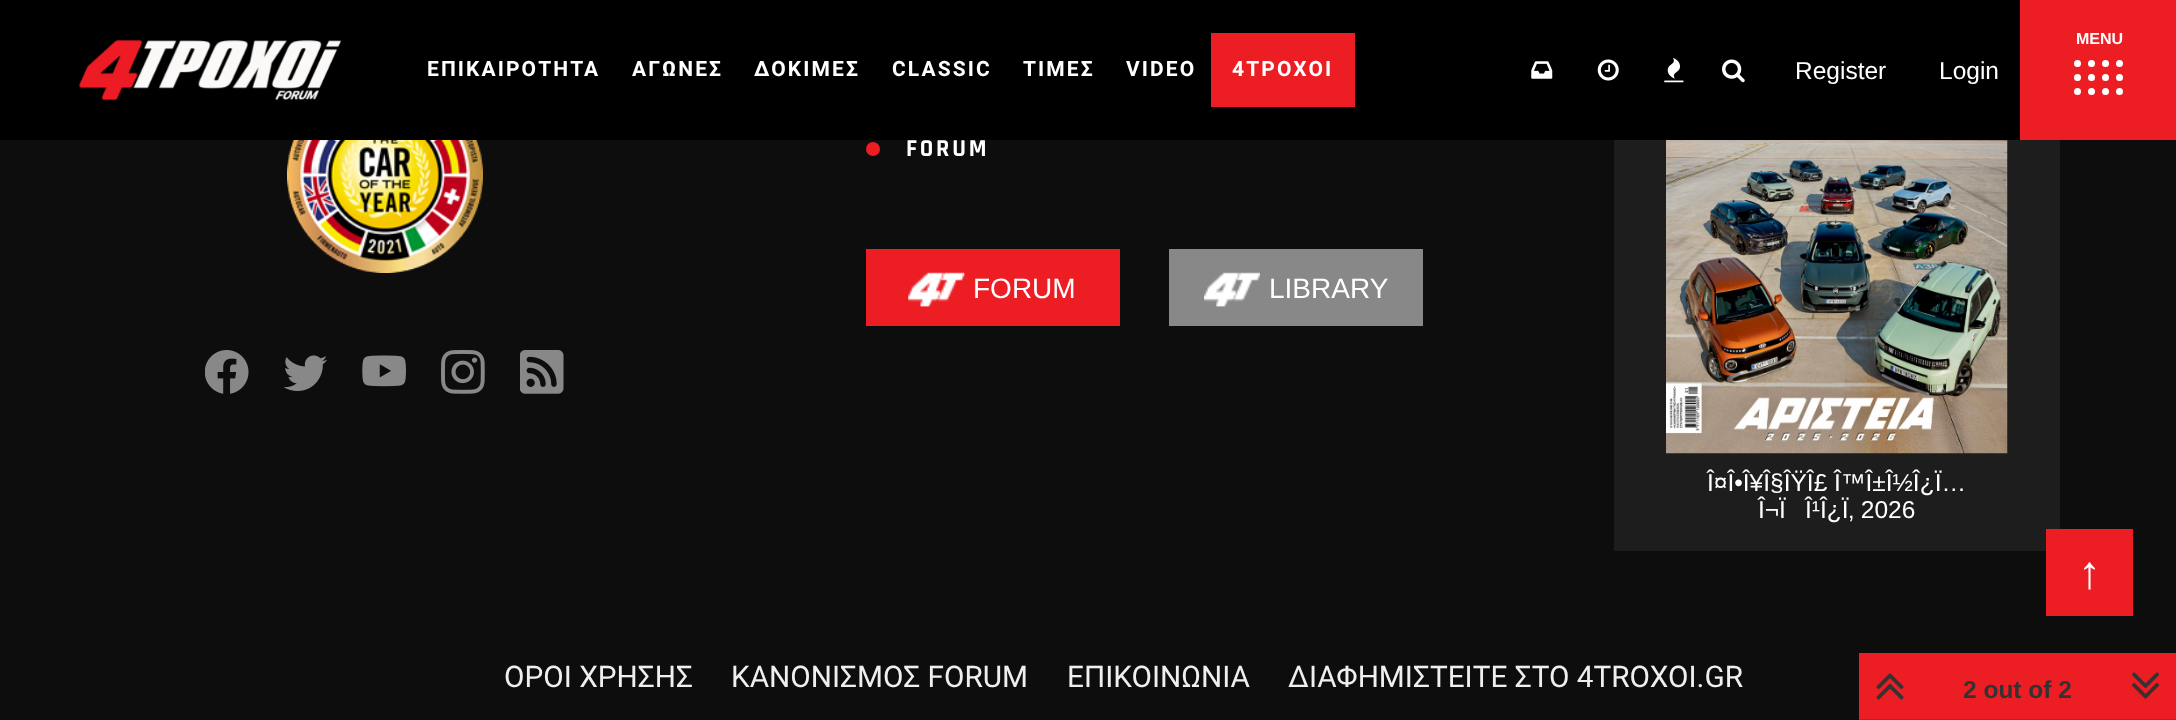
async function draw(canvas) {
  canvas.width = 2176
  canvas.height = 720
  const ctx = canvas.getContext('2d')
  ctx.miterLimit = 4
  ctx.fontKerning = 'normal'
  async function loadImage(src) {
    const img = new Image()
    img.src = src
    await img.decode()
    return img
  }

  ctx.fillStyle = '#0d0d0d'
  ctx.fillRect(0, 0, 2176, 720)
  ctx.fillStyle = '#000'
  ctx.fillRect(0, 0, 2020, 140)
  ctx.drawImage(await loadImage('image0.png'), 78, 40, 263, 61)
  ctx.letterSpacing = '2.1px'
  ctx.font = 'bold 21px Roboto'
  ctx.fillStyle = '#fff'
  ctx.fillText('ΕΠΙΚΑΙΡΟΤΗΤΑ', 427, 76)
  ctx.fillText('ΑΓΩΝΕΣ', 632, 76)
  ctx.fillText('ΔΟΚΙΜΕΣ', 754, 76)
  ctx.fillText('CLASSIC', 892, 76)
  ctx.fillText('ΤΙΜΕΣ', 1023, 76)
  ctx.fillText('VIDEO', 1126, 76)
  ctx.fillStyle = '#ed1d24'
  ctx.fillRect(1211, 33, 144, 74)
  ctx.fillStyle = '#fff'
  ctx.fillText('4ΤΡΟΧΟΙ', 1232, 76)
  ctx.drawImage(await loadImage('image1.png'), 1531, 61, 22, 18)
  ctx.drawImage(await loadImage('image2.png'), 1597, 59, 22, 22)
  ctx.drawImage(await loadImage('image3.png'), 1664, 57, 20, 26)
  ctx.drawImage(await loadImage('image4.png'), 1722, 59, 23, 24)
  ctx.letterSpacing = '0px'
  ctx.font = '24.5px Liberation Sans'
  ctx.fillText('Register', 1795, 79)
  ctx.fillText('Login', 1939, 79)
  ctx.fillStyle = '#ed1d24'
  ctx.fillRect(2020, 0, 156, 140)
  ctx.font = 'bold 16px Liberation Sans'
  ctx.fillStyle = '#fff'
  ctx.fillText('MENU', 2076, 44)
  ctx.beginPath()
  ctx.arc(2077.5, 63.5, 3.5, 0, 2 * Math.PI)
  ctx.fill()
  ctx.beginPath()
  ctx.arc(2091.5, 63.5, 3.5, 0, 2 * Math.PI)
  ctx.fill()
  ctx.beginPath()
  ctx.arc(2105.5, 63.5, 3.5, 0, 2 * Math.PI)
  ctx.fill()
  ctx.beginPath()
  ctx.arc(2119.5, 63.5, 3.5, 0, 2 * Math.PI)
  ctx.fill()
  ctx.beginPath()
  ctx.arc(2077.5, 77.5, 3.5, 0, 2 * Math.PI)
  ctx.fill()
  ctx.beginPath()
  ctx.arc(2091.5, 77.5, 3.5, 0, 2 * Math.PI)
  ctx.fill()
  ctx.beginPath()
  ctx.arc(2105.5, 77.5, 3.5, 0, 2 * Math.PI)
  ctx.fill()
  ctx.beginPath()
  ctx.arc(2119.5, 77.5, 3.5, 0, 2 * Math.PI)
  ctx.fill()
  ctx.beginPath()
  ctx.arc(2077.5, 91.5, 3.5, 0, 2 * Math.PI)
  ctx.fill()
  ctx.beginPath()
  ctx.arc(2091.5, 91.5, 3.5, 0, 2 * Math.PI)
  ctx.fill()
  ctx.beginPath()
  ctx.arc(2105.5, 91.5, 3.5, 0, 2 * Math.PI)
  ctx.fill()
  ctx.beginPath()
  ctx.arc(2119.5, 91.5, 3.5, 0, 2 * Math.PI)
  ctx.fill()
  ctx.fillStyle = '#ed1d24'
  ctx.fillRect(1859, 653, 317, 66)
  ctx.fillStyle = '#c9191f'
  ctx.fillRect(1859, 719, 317, 1)
  ctx.drawImage(await loadImage('image5.png'), 1876, 673, 28, 27)
  ctx.font = 'bold 24.5px Liberation Sans'
  ctx.fillStyle = '#333'
  ctx.fillText('2 out of 2', 1963, 698)
  ctx.drawImage(await loadImage('image6.png'), 2131, 672, 29, 27)
  ctx.drawImage(await loadImage('image7.png'), 287, 140, 196, 133)
  ctx.drawImage(await loadImage('image8.png'), 205, 350, 44, 44)
  ctx.drawImage(await loadImage('image9.png'), 284, 355, 43, 36)
  ctx.drawImage(await loadImage('image10.png'), 362, 355, 44, 32)
  ctx.drawImage(await loadImage('image11.png'), 441, 350, 44, 44)
  ctx.drawImage(await loadImage('image12.png'), 520, 350, 44, 44)
  ctx.fillStyle = '#ed1d24'
  ctx.beginPath()
  ctx.arc(873, 149, 7, 0, 2 * Math.PI)
  ctx.fill()
  ctx.letterSpacing = '2.75px'
  ctx.font = 'bold 24.5px Rajdhani'
  ctx.fillStyle = '#fff'
  ctx.fillText('FORUM', 906, 156)
  ctx.fillStyle = '#ed1d24'
  ctx.fillRect(866, 249, 254, 77)
  ctx.drawImage(await loadImage('image13.png'), 908, 272, 57, 35)
  ctx.letterSpacing = '0px'
  ctx.font = '28px Liberation Sans'
  ctx.fillStyle = '#fff'
  ctx.fillText('FORUM', 973, 298)
  ctx.fillStyle = '#888'
  ctx.fillRect(1169, 249, 254, 77)
  ctx.drawImage(await loadImage('image14.png'), 1204, 272, 56, 35)
  ctx.fillStyle = '#fff'
  ctx.fillText('LIBRARY', 1269, 298)
  ctx.fillStyle = '#1d1d1d'
  ctx.fillRect(1614, 140, 446, 411)
  ctx.drawImage(await loadImage('image15.png'), 1666, 140, 342, 314)
  ctx.font = '24.5px Liberation Sans'
  ctx.fillStyle = '#fff'
  ctx.fillText('Î¤Î•Î¥Î§ÎŸÎ£ Î™Î±Î½Î¿Ï…', 1707, 491)
  ctx.fillText('Î¬Ï', 1758, 518)
  ctx.fillText('Î¹Î¿Ï‚ 2026', 1805, 518)
  ctx.font = '29.75px Roboto'
  ctx.fillStyle = '#efefef'
  ctx.fillText('ΟΡΟΙ ΧΡΗΣΗΣ', 504, 687)
  ctx.fillText('ΚΑΝΟΝΙΣΜΟΣ FORUM', 731, 687)
  ctx.fillText('ΕΠΙΚΟΙΝΩΝΙΑ', 1067, 687)
  ctx.fillText('ΔΙΑΦΗΜΙΣΤΕΙΤΕ ΣΤΟ 4TROXOI.GR', 1288, 687)
  ctx.fillStyle = '#ed1d24'
  ctx.fillRect(2046, 529, 87, 87)
  ctx.font = '46px Liberation Sans'
  ctx.fillStyle = '#fff'
  ctx.fillText('↑', 2078, 588)
}

draw(document.querySelector('canvas'))
